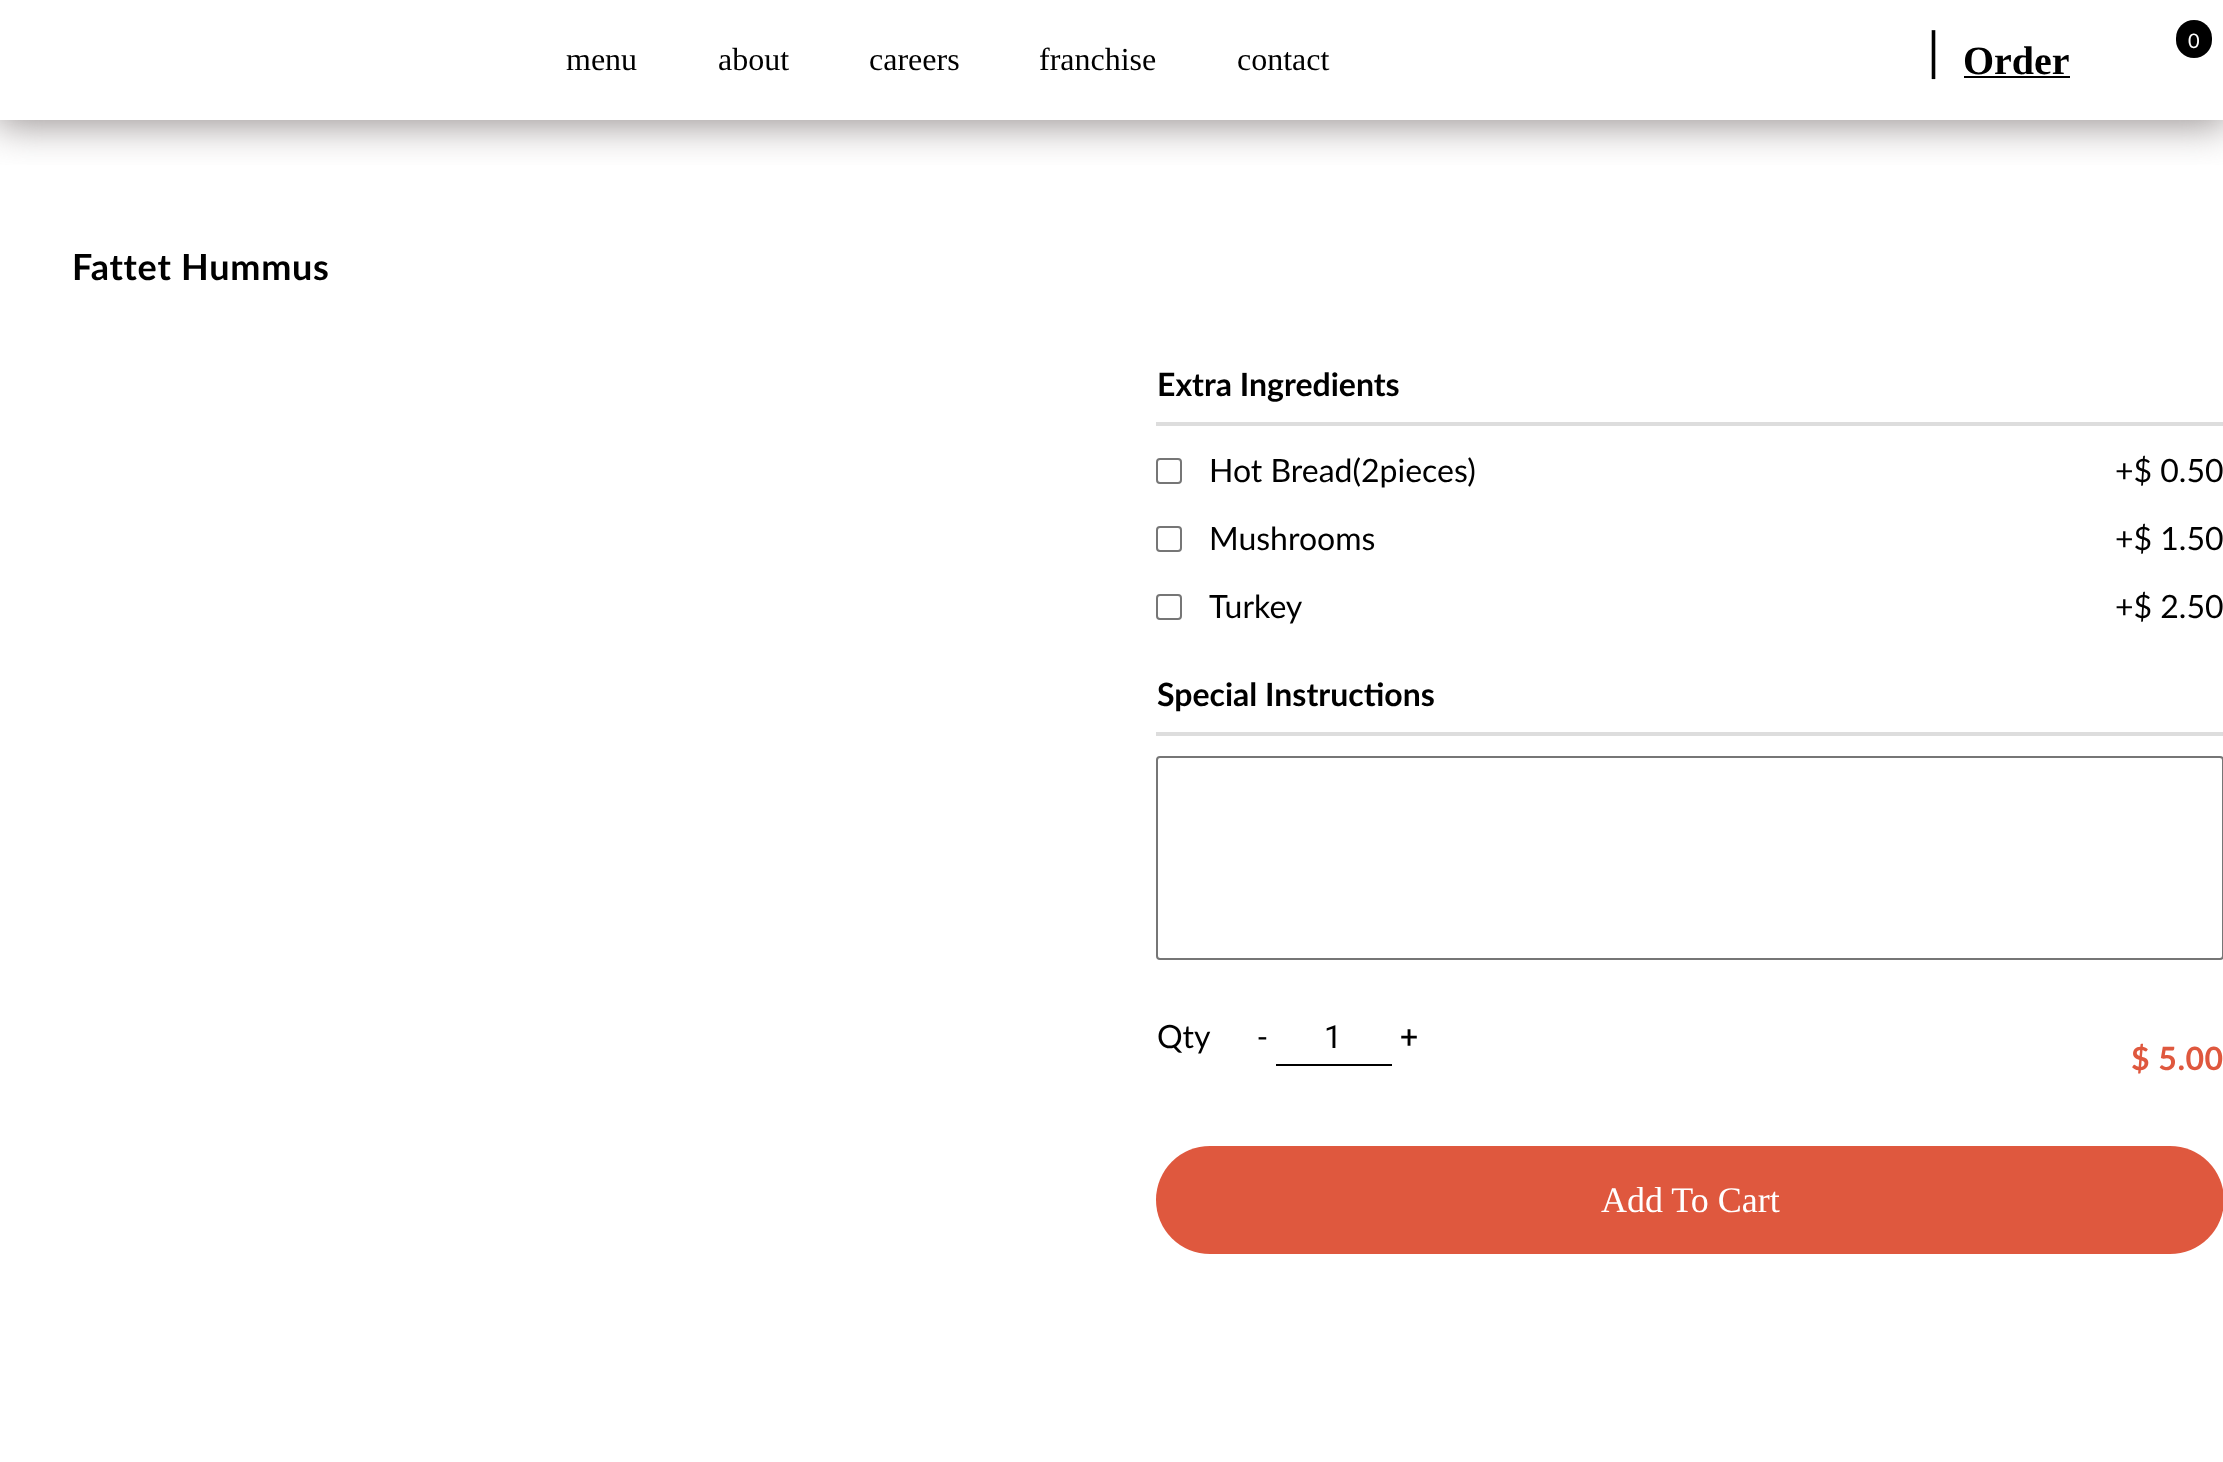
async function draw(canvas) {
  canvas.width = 2223
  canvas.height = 1462
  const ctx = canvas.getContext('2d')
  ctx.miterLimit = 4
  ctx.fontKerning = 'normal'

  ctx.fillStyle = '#fff'
  ctx.fillRect(0, 0, 2223, 1462)
  ctx.save()
  ctx.beginPath()
  ctx.rect(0, 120, 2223, 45)
  ctx.clip()
  ctx.fillStyle = '#938c8c'
  ctx.filter = 'blur(20px)'
  ctx.beginPath()
  ctx.rect(-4, -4, 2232, 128)
  ctx.fill()
  ctx.filter = 'none'
  ctx.restore()
  ctx.font = '32px Liberation Serif'
  ctx.fillStyle = '#000'
  ctx.fillText('menu', 566, 70)
  ctx.fillText('about', 718, 70)
  ctx.fillText('careers', 869, 70)
  ctx.fillText('franchise', 1039, 70)
  ctx.fillText('contact', 1237, 70)
  ctx.font = '52px Lato'
  ctx.fillText('|', 1927, 70)
  ctx.beginPath()
  ctx.roundRect(2176, 20, 36, 38, 18)
  ctx.fill()
  ctx.font = '20px Lato'
  ctx.fillStyle = '#fff'
  ctx.fillText('0', 2188, 48)
  ctx.font = 'bold 40px Liberation Serif'
  ctx.fillStyle = '#000'
  ctx.fillText('Order', 1963, 74)
  ctx.fillRect(1964, 76, 106, 2)
  ctx.letterSpacing = '0.75px'
  ctx.font = 'bold 36px Lato'
  ctx.fillText('Fattet Hummus', 72, 280)
  ctx.fillStyle = '#ddd'
  ctx.fillRect(1156, 422, 1067, 4)
  ctx.letterSpacing = '0px'
  ctx.font = 'bold 32px Lato'
  ctx.fillStyle = '#000'
  ctx.fillText('Extra Ingredients', 1157, 396)
  ctx.beginPath()
  ctx.roundRect(1157, 459, 24, 24, 3)
  ctx.strokeStyle = '#767676'
  ctx.lineWidth = 2
  ctx.stroke()
  ctx.font = '32px Lato'
  ctx.fillText('Hot Bread(2pieces)', 1209, 482)
  ctx.fillText('+$ 0.50', 2115, 482)
  ctx.beginPath()
  ctx.roundRect(1157, 527, 24, 24, 3)
  ctx.stroke()
  ctx.fillText('Mushrooms', 1209, 550)
  ctx.fillText('+$ 1.50', 2115, 550)
  ctx.beginPath()
  ctx.roundRect(1157, 595, 24, 24, 3)
  ctx.stroke()
  ctx.fillText('Turkey', 1209, 618)
  ctx.fillText('+$ 2.50', 2115, 618)
  ctx.fillStyle = '#ddd'
  ctx.fillRect(1156, 732, 1067, 4)
  ctx.font = 'bold 32px Lato'
  ctx.fillStyle = '#000'
  ctx.fillText('Special Instructions', 1157, 706)
  ctx.beginPath()
  ctx.roundRect(1157, 757, 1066, 202, 3)
  ctx.stroke()
  ctx.font = '32px Lato'
  ctx.fillText('Qty', 1157, 1048)
  ctx.font = '32px Roboto'
  ctx.fillText('-', 1258, 1048)
  ctx.fillRect(1276, 1064, 116, 2)
  ctx.fillText('1', 1324, 1048)
  ctx.fillText('+', 1400, 1048)
  ctx.fillStyle = '#df583e'
  ctx.beginPath()
  ctx.roundRect(1156, 1146, 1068, 108, 54)
  ctx.fill()
  ctx.font = '36px Liberation Serif'
  ctx.fillStyle = '#fff'
  ctx.fillText('Add To Cart', 1601, 1212)
  ctx.letterSpacing = '0.5px'
  ctx.font = 'bold 32px Lato'
  ctx.fillStyle = '#df583e'
  ctx.fillText('$ 5.00', 2131, 1070)
}

draw(document.querySelector('canvas'))
